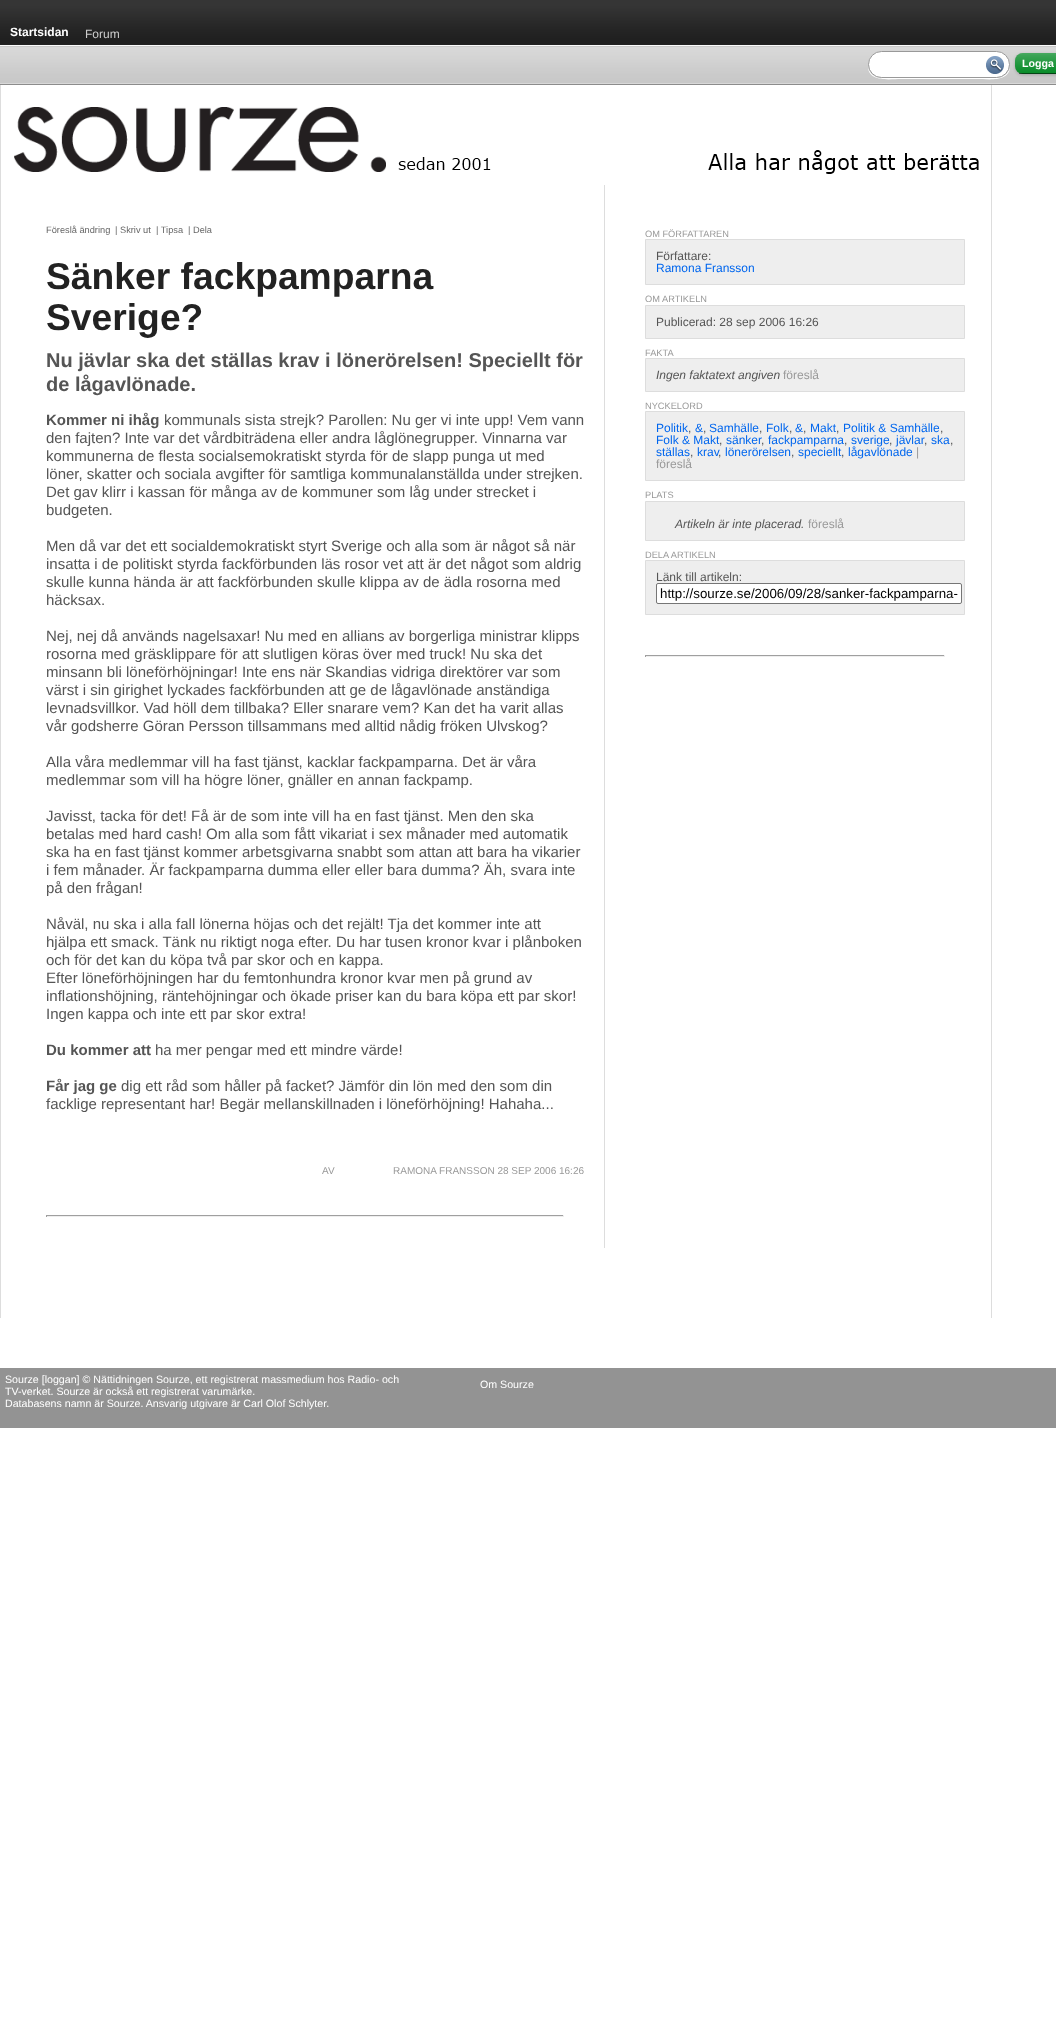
async function draw(canvas) {
  canvas.width = 1056
  canvas.height = 2024
  const ctx = canvas.getContext('2d')
  ctx.miterLimit = 4
  ctx.fontKerning = 'normal'
  async function loadImage(src) {
    const img = new Image()
    img.src = src
    await img.decode()
    return img
  }

  ctx.fillStyle = '#fff'
  ctx.fillRect(0, 0, 1056, 2024)
  ctx.drawImage(await loadImage('image0.png'), 0, 0, 1056, 45)
  ctx.font = 'bold 12px Liberation Sans'
  ctx.fillText('Startsidan', 10, 36)
  ctx.font = '12px Liberation Sans'
  ctx.fillStyle = '#ccc'
  ctx.fillText('Forum', 85, 38)
  ctx.drawImage(await loadImage('image1.png'), 0, 45, 1056, 40)
  ctx.fillStyle = '#00000033'
  ctx.filter = 'blur(1.5px)'
  ctx.beginPath()
  ctx.roundRect(1015, 54, 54, 21, 8)
  ctx.fill()
  ctx.filter = 'none'
  ctx.fillStyle = '#fff'
  ctx.beginPath()
  ctx.moveTo(868, 65)
  ctx.bezierCurveTo(867, 83, 890, 79, 901, 79)
  ctx.lineTo(977, 79)
  ctx.bezierCurveTo(988, 79, 1011, 83, 1010, 65)
  ctx.bezierCurveTo(1010, 72, 1004, 78, 996, 78)
  ctx.lineTo(882, 78)
  ctx.bezierCurveTo(874, 78, 868, 72, 868, 65)
  ctx.closePath()
  ctx.fill()
  ctx.beginPath()
  ctx.roundRect(868.5, 51.5, 141, 26, 13)
  ctx.fill()
  ctx.strokeStyle = '#999'
  ctx.stroke()
  ctx.drawImage(await loadImage('image2.png'), 986, 56, 18, 18)
  ctx.fillStyle = '#082'
  ctx.beginPath()
  ctx.roundRect(1015, 53, 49, 21, 8)
  ctx.fill()
  ctx.drawImage(await loadImage('image3.png'), 1015, 53, 41, 21)
  ctx.fillStyle = '#00000080'
  ctx.fillRect(1019, 73, 37, 1)
  ctx.font = 'bold 10.65px Liberation Sans'
  ctx.fillStyle = '#fff'
  ctx.fillText('Logga', 1022, 67)
  ctx.fillStyle = '#ddd'
  ctx.fillRect(0, 85, 1, 1233)
  ctx.fillRect(991, 85, 1, 1233)
  ctx.drawImage(await loadImage('image4.png'), 14, 107, 965, 67)
  ctx.fillRect(604, 185, 1, 1063)
  ctx.font = '9.25px Liberation Sans'
  ctx.fillStyle = '#666'
  ctx.fillText('Föreslå ändring', 46, 233)
  ctx.fillText('| Skriv ut', 115, 233)
  ctx.fillText('| Tipsa', 156, 233)
  ctx.fillText('| Dela', 188, 233)
  ctx.font = 'bold 37.25px Liberation Sans'
  ctx.fillStyle = '#222'
  ctx.fillText('Sänker fackpamparna', 46, 289)
  ctx.fillText('Sverige?', 46, 330)
  ctx.font = 'bold 20px Liberation Sans'
  ctx.fillStyle = '#555'
  ctx.fillText('Nu jävlar ska det ställas krav i lönerörelsen! Speciellt för', 46, 367)
  ctx.fillText('de lågavlönade.', 46, 391)
  ctx.font = 'bold 15px Liberation Sans'
  ctx.fillText('Kommer ni ihåg', 46, 425)
  ctx.font = '15px Liberation Sans'
  ctx.fillText('kommunals sista strejk? Parollen: Nu ger vi inte upp! Vem vann', 164, 425)
  ctx.fillText('den fajten? Inte var det vårdbiträdena eller andra låglönegrupper. Vinnarna var', 46, 443)
  ctx.fillText('kommunerna de flesta socialsemokratiskt styrda för de slapp punga ut med', 46, 461)
  ctx.fillText('löner, skatter och sociala avgifter för samtliga kommunalanställda under strejken.', 46, 479)
  ctx.fillText('Det gav klirr i kassan för många av de kommuner som låg under strecket i', 46, 497)
  ctx.fillText('budgeten.', 46, 515)
  ctx.fillText('Men då var det ett socialdemokratiskt styrt Sverige och alla som är något så när', 46, 551)
  ctx.fillText('insatta i de politiskt styrda fackförbunden läs rosor vet att är det något som aldrig', 46, 569)
  ctx.fillText('skulle kunna hända är att fackförbunden skulle klippa av de ädla rosorna med', 46, 587)
  ctx.fillText('häcksax.', 46, 605)
  ctx.fillText('Nej, nej då används nagelsaxar! Nu med en allians av borgerliga ministrar klipps', 46, 641)
  ctx.fillText('rosorna med gräsklippare för att slutligen köras över med truck! Nu ska det', 46, 659)
  ctx.fillText('minsann bli löneförhöjningar! Inte ens när Skandias vidriga direktörer var som', 46, 677)
  ctx.fillText('värst i sin girighet lyckades fackförbunden att ge de lågavlönade anständiga', 46, 695)
  ctx.fillText('levnadsvillkor. Vad höll dem tillbaka? Eller snarare vem? Kan det ha varit allas', 46, 713)
  ctx.fillText('vår godsherre Göran Persson tillsammans med alltid nådig fröken Ulvskog?', 46, 731)
  ctx.fillText('Alla våra medlemmar vill ha fast tjänst, kacklar fackpamparna. Det är våra', 46, 767)
  ctx.fillText('medlemmar som vill ha högre löner, gnäller en annan fackpamp.', 46, 785)
  ctx.fillText('Javisst, tacka för det! Få är de som inte vill ha en fast tjänst. Men den ska', 46, 821)
  ctx.fillText('betalas med hard cash! Om alla som fått vikariat i sex månader med automatik', 46, 839)
  ctx.fillText('ska ha en fast tjänst kommer arbetsgivarna snabbt som attan att bara ha vikarier', 46, 857)
  ctx.fillText('i fem månader. Är fackpamparna dumma eller eller bara dumma? Äh, svara inte', 46, 875)
  ctx.fillText('på den frågan!', 46, 893)
  ctx.fillText('Nåväl, nu ska i alla fall lönerna höjas och det rejält! Tja det kommer inte att', 46, 929)
  ctx.fillText('hjälpa ett smack. Tänk nu riktigt noga efter. Du har tusen kronor kvar i plånboken', 46, 947)
  ctx.fillText('och för det kan du köpa två par skor och en kappa.', 46, 965)
  ctx.fillText('Efter löneförhöjningen har du femtonhundra kronor kvar men på grund av', 46, 983)
  ctx.fillText('inflationshöjning, räntehöjningar och ökade priser kan du bara köpa ett par skor!', 46, 1001)
  ctx.fillText('Ingen kappa och inte ett par skor extra!', 46, 1019)
  ctx.font = 'bold 15px Liberation Sans'
  ctx.fillText('Du kommer att', 46, 1055)
  ctx.font = '15px Liberation Sans'
  ctx.fillText('ha mer pengar med ett mindre värde!', 155, 1055)
  ctx.font = 'bold 15px Liberation Sans'
  ctx.fillText('Får jag ge', 46, 1091)
  ctx.font = '15px Liberation Sans'
  ctx.fillText('dig ett råd som håller på facket? Jämför din lön med den som din', 121, 1091)
  ctx.fillText('facklige representant har! Begär mellanskillnaden i löneförhöjning! Hahaha...', 46, 1109)
  ctx.font = '10px Liberation Sans'
  ctx.fillStyle = '#999'
  ctx.fillText('AV', 322, 1174)
  ctx.fillText('RAMONA FRANSSON 28 SEP 2006 16:26', 393, 1174)
  ctx.fillStyle = '#9f9f9f'
  ctx.fillRect(46, 1215, 518, 1)
  ctx.fillStyle = '#eee'
  ctx.fillRect(563, 1215, 1, 2)
  ctx.fillRect(46, 1216, 518, 1)
  ctx.fillStyle = '#9f9f9f'
  ctx.fillRect(46, 1215, 1, 2)
  ctx.font = '9.25px Liberation Sans'
  ctx.fillStyle = '#999'
  ctx.fillText('OM FÖRFATTAREN', 645, 237)
  ctx.fillStyle = '#eee'
  ctx.beginPath()
  ctx.rect(645.5, 239.5, 319, 45)
  ctx.fill()
  ctx.strokeStyle = '#ddd'
  ctx.stroke()
  ctx.font = '12px Liberation Sans'
  ctx.fillStyle = '#555'
  ctx.fillText('Författare:', 656, 260)
  ctx.fillStyle = '#06e'
  ctx.fillText('Ramona Fransson', 656, 272)
  ctx.font = '9.25px Liberation Sans'
  ctx.fillStyle = '#999'
  ctx.fillText('OM ARTIKELN', 645, 302)
  ctx.fillStyle = '#eee'
  ctx.beginPath()
  ctx.rect(645.5, 305.5, 319, 33)
  ctx.fill()
  ctx.stroke()
  ctx.font = '12px Liberation Sans'
  ctx.fillStyle = '#555'
  ctx.fillText('Publicerad: 28 sep 2006 16:26', 656, 326)
  ctx.font = '9.25px Liberation Sans'
  ctx.fillStyle = '#999'
  ctx.fillText('FAKTA', 645, 356)
  ctx.fillStyle = '#eee'
  ctx.beginPath()
  ctx.rect(645.5, 358.5, 319, 33)
  ctx.fill()
  ctx.stroke()
  ctx.font = 'italic 12px Liberation Sans'
  ctx.fillStyle = '#555'
  ctx.fillText('Ingen faktatext angiven', 656, 379)
  ctx.font = '12px Liberation Sans'
  ctx.fillStyle = '#999'
  ctx.fillText('föreslå', 783, 379)
  ctx.font = '9.25px Liberation Sans'
  ctx.fillText('NYCKELORD', 645, 409)
  ctx.fillStyle = '#eee'
  ctx.beginPath()
  ctx.rect(645.5, 411.5, 319, 69)
  ctx.fill()
  ctx.stroke()
  ctx.font = '12px Liberation Sans'
  ctx.fillStyle = '#06e'
  ctx.fillText('Politik', 656, 432)
  ctx.fillStyle = '#555'
  ctx.fillText(',', 688, 432)
  ctx.fillStyle = '#06e'
  ctx.fillText('&', 695, 432)
  ctx.fillStyle = '#555'
  ctx.fillText(',', 703, 432)
  ctx.fillStyle = '#06e'
  ctx.fillText('Samhälle', 709, 432)
  ctx.fillStyle = '#555'
  ctx.fillText(',', 759, 432)
  ctx.fillStyle = '#06e'
  ctx.fillText('Folk', 766, 432)
  ctx.fillStyle = '#555'
  ctx.fillText(',', 789, 432)
  ctx.fillStyle = '#06e'
  ctx.fillText('&', 795, 432)
  ctx.fillStyle = '#555'
  ctx.fillText(',', 803, 432)
  ctx.fillStyle = '#06e'
  ctx.fillText('Makt', 810, 432)
  ctx.fillStyle = '#555'
  ctx.fillText(',', 836, 432)
  ctx.fillStyle = '#06e'
  ctx.fillText('Politik & Samhälle', 843, 432)
  ctx.fillStyle = '#555'
  ctx.fillText(',', 940, 432)
  ctx.fillStyle = '#06e'
  ctx.fillText('Folk & Makt', 656, 444)
  ctx.fillStyle = '#555'
  ctx.fillText(',', 719, 444)
  ctx.fillStyle = '#06e'
  ctx.fillText('sänker', 726, 444)
  ctx.fillStyle = '#555'
  ctx.fillText(',', 761, 444)
  ctx.fillStyle = '#06e'
  ctx.fillText('fackpamparna', 768, 444)
  ctx.fillStyle = '#555'
  ctx.fillText(',', 844, 444)
  ctx.fillStyle = '#06e'
  ctx.fillText('sverige', 851, 444)
  ctx.fillStyle = '#555'
  ctx.fillText(',', 889, 444)
  ctx.fillStyle = '#06e'
  ctx.fillText('jävlar', 896, 444)
  ctx.fillStyle = '#555'
  ctx.fillText(',', 924, 444)
  ctx.fillStyle = '#06e'
  ctx.fillText('ska', 931, 444)
  ctx.fillStyle = '#555'
  ctx.fillText(',', 950, 444)
  ctx.fillStyle = '#06e'
  ctx.fillText('ställas', 656, 456)
  ctx.fillStyle = '#555'
  ctx.fillText(',', 690, 456)
  ctx.fillStyle = '#06e'
  ctx.fillText('krav', 697, 456)
  ctx.fillText('lönerörelsen', 725, 456)
  ctx.fillText('speciellt', 798, 456)
  ctx.fillText('lågavlönade', 848, 456)
  ctx.fillStyle = '#999'
  ctx.fillText('|', 916, 456)
  ctx.fillStyle = '#555'
  ctx.fillText(',', 718, 456)
  ctx.fillText(',', 791, 456)
  ctx.fillText(',', 841, 456)
  ctx.fillStyle = '#999'
  ctx.fillText('föreslå', 656, 468)
  ctx.font = '9.25px Liberation Sans'
  ctx.fillText('PLATS', 645, 498)
  ctx.fillStyle = '#eee'
  ctx.beginPath()
  ctx.rect(645.5, 501.5, 319, 39)
  ctx.fill()
  ctx.stroke()
  ctx.font = 'italic 12px Liberation Sans'
  ctx.fillStyle = '#555'
  ctx.fillText('Artikeln är inte placerad.', 675, 528)
  ctx.font = '12px Liberation Sans'
  ctx.fillStyle = '#999'
  ctx.fillText('föreslå', 808, 528)
  ctx.font = '9.25px Liberation Sans'
  ctx.fillText('DELA ARTIKELN', 645, 558)
  ctx.fillStyle = '#eee'
  ctx.beginPath()
  ctx.rect(645.5, 560.5, 319, 54)
  ctx.fill()
  ctx.stroke()
  ctx.font = '12px Liberation Sans'
  ctx.fillStyle = '#555'
  ctx.fillText('Länk till artikeln:', 656, 581)
  ctx.fillStyle = '#fff'
  ctx.beginPath()
  ctx.roundRect(656.5, 583.5, 305, 20, 1.5)
  ctx.fill()
  ctx.strokeStyle = '#767676'
  ctx.stroke()
  ctx.font = '13.3px Liberation Sans'
  ctx.fillStyle = '#000'
  ctx.fillText('http://sourze.se/2006/09/28/sanker-fackpamparna-', 660, 598)
  ctx.fillStyle = '#9f9f9f'
  ctx.fillRect(645, 655, 300, 1)
  ctx.fillStyle = '#eee'
  ctx.fillRect(944, 655, 1, 2)
  ctx.fillRect(645, 656, 300, 1)
  ctx.fillStyle = '#9f9f9f'
  ctx.fillRect(645, 655, 1, 2)
  ctx.fillStyle = '#939393'
  ctx.fillRect(0, 1368, 1056, 60)
  ctx.font = '10.65px Liberation Sans'
  ctx.fillStyle = '#fff'
  ctx.fillText('Sourze [loggan] © Nättidningen Sourze, ett registrerat massmedium hos Radio- och', 5, 1383)
  ctx.fillText('TV-verket. Sourze är också ett registrerat varumärke.', 5, 1395)
  ctx.fillText('Databasens namn är Sourze. Ansvarig utgivare är Carl Olof Schlyter.', 5, 1407)
  ctx.fillText('Om Sourze', 480, 1388)
}

draw(document.querySelector('canvas'))
